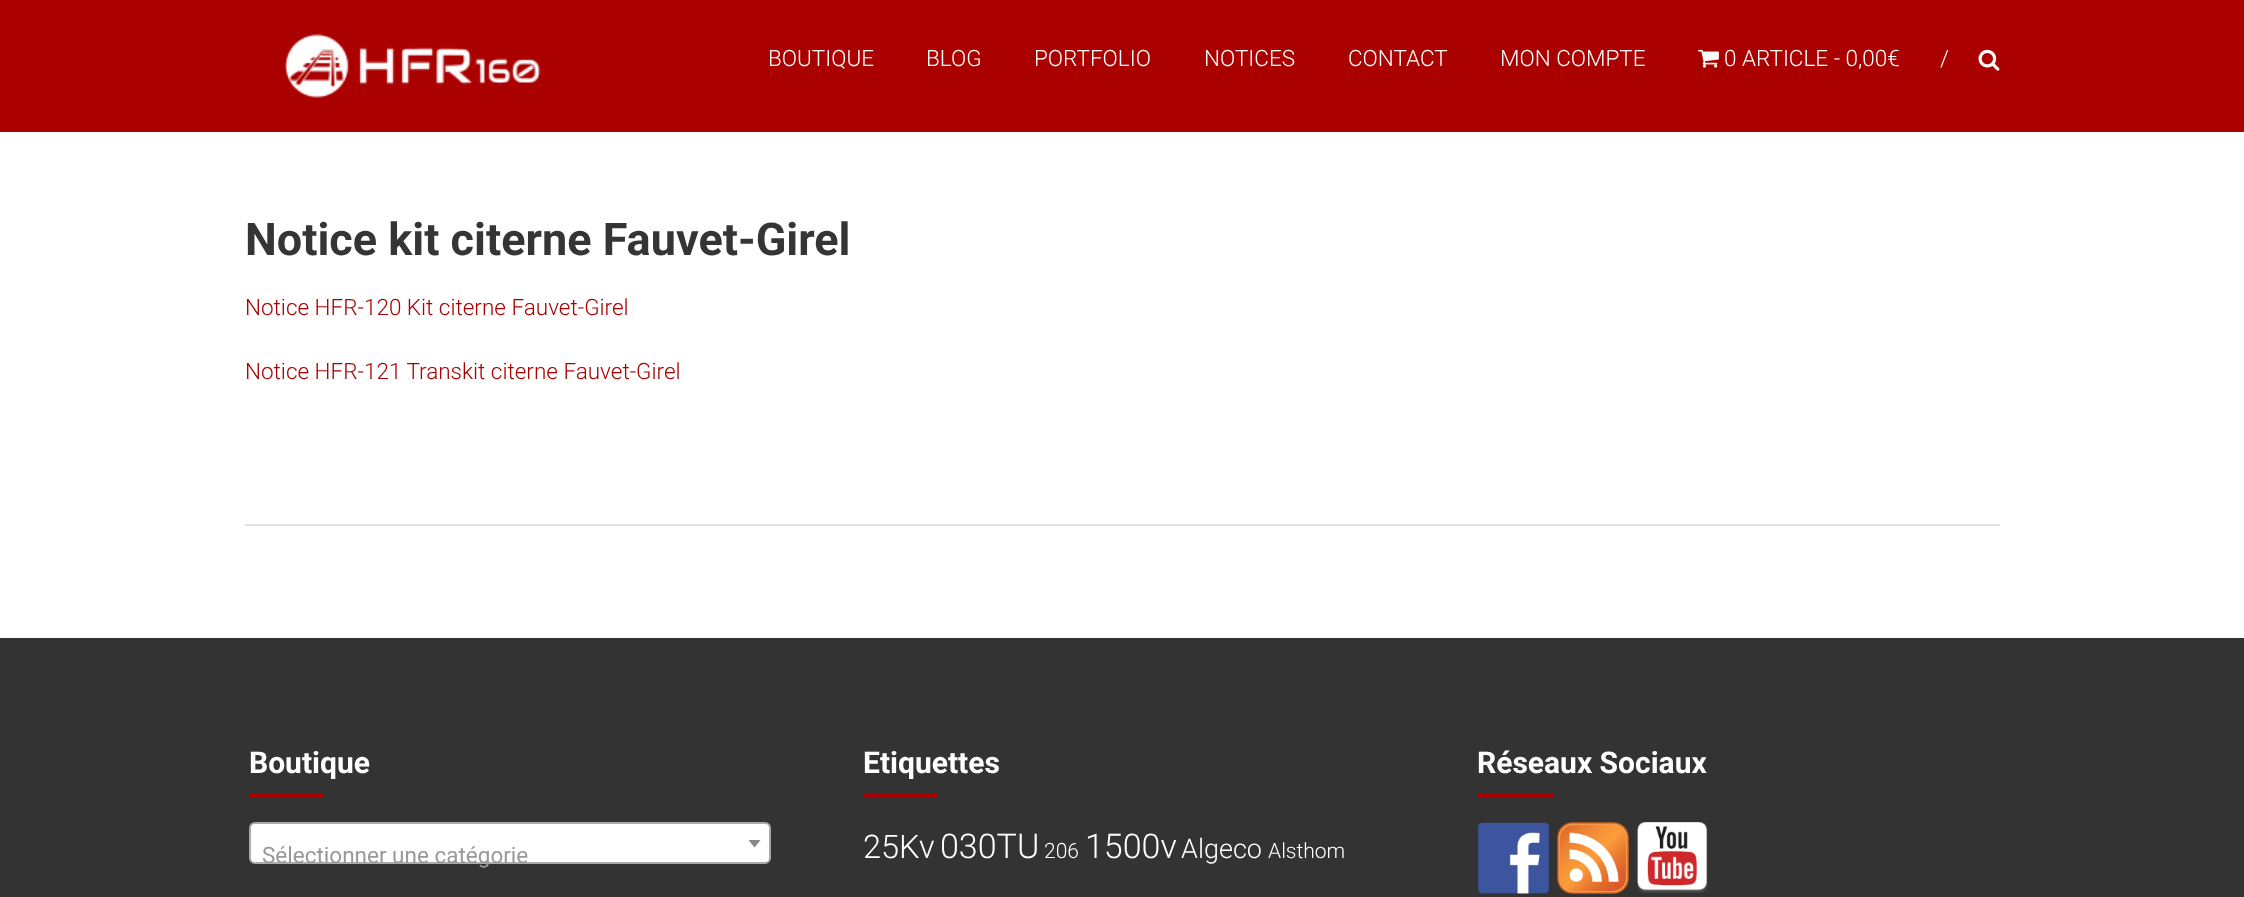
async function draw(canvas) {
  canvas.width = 2244
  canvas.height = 897
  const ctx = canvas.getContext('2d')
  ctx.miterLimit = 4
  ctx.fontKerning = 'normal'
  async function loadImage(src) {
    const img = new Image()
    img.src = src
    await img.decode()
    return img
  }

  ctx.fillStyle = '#fff'
  ctx.fillRect(0, 0, 2244, 897)
  ctx.fillStyle = '#a00'
  ctx.fillRect(0, 0, 2244, 132)
  ctx.drawImage(await loadImage('image0.png'), 284, 34, 257, 64)
  ctx.font = '300 22.5px Roboto'
  ctx.fillStyle = '#fff'
  ctx.fillText('BOUTIQUE', 768, 66)
  ctx.fillText('BLOG', 926, 66)
  ctx.fillText('PORTFOLIO', 1034, 66)
  ctx.fillText('NOTICES', 1204, 66)
  ctx.fillText('CONTACT', 1348, 66)
  ctx.fillText('MON COMPTE', 1500, 66)
  ctx.drawImage(await loadImage('image1.png'), 1698, 49, 21, 19)
  ctx.fillText('0 ARTICLE - 0,00€', 1724, 66)
  ctx.fillText('/', 1940, 66)
  ctx.drawImage(await loadImage('image2.png'), 1978, 49, 22, 22)
  ctx.fillStyle = '#e1e1e1'
  ctx.fillRect(245, 524, 1755, 2)
  ctx.font = 'bold 45px Roboto'
  ctx.fillStyle = '#353535'
  ctx.fillText('Notice kit citerne Fauvet-Girel', 245, 255)
  ctx.font = '300 22.5px Roboto'
  ctx.fillStyle = '#a00'
  ctx.fillText('Notice HFR-120 Kit citerne Fauvet-Girel', 245, 315)
  ctx.fillText('Notice HFR-121 Transkit citerne Fauvet-Girel', 245, 379)
  ctx.fillStyle = '#333'
  ctx.fillRect(0, 638, 2244, 259)
  ctx.font = 'bold 30px Roboto'
  ctx.fillStyle = '#fff'
  ctx.fillText('Boutique', 249, 773)
  ctx.fillStyle = '#a00'
  ctx.fillRect(249, 794, 75, 3)
  ctx.fillStyle = '#fff'
  ctx.beginPath()
  ctx.roundRect(250, 823, 520, 40, 5)
  ctx.fill()
  ctx.strokeStyle = '#aaa'
  ctx.lineWidth = 2
  ctx.stroke()
  ctx.fillStyle = '#888'
  ctx.beginPath()
  ctx.moveTo(748.5, 840)
  ctx.lineTo(760.5, 840)
  ctx.lineTo(754.5, 847.5)
  ctx.closePath()
  ctx.fill()
  ctx.font = '22.5px Roboto'
  ctx.fillStyle = '#999'
  ctx.fillText('Sélectionner une catégorie', 262, 863)
  ctx.font = 'bold 30px Roboto'
  ctx.fillStyle = '#fff'
  ctx.fillText('Etiquettes', 863, 773)
  ctx.fillStyle = '#a00'
  ctx.fillRect(863, 794, 75, 3)
  ctx.font = '300 32.5px Roboto'
  ctx.fillStyle = '#fff'
  ctx.fillText('25Kv', 863, 858)
  ctx.font = '300 34px Roboto'
  ctx.fillText('030TU', 940, 858)
  ctx.font = '300 21px Roboto'
  ctx.fillText('206', 1044, 858)
  ctx.font = '300 34px Roboto'
  ctx.fillText('1500v', 1085, 858)
  ctx.font = '300 27px Roboto'
  ctx.fillText('Algeco', 1181, 858)
  ctx.font = '300 21px Roboto'
  ctx.fillText('Alsthom', 1268, 858)
  ctx.font = 'bold 30px Roboto'
  ctx.fillText('Réseaux Sociaux', 1477, 773)
  ctx.fillStyle = '#a00'
  ctx.fillRect(1478, 794, 75, 3)
  ctx.drawImage(await loadImage('image3.png'), 1477, 822, 73, 72)
  ctx.drawImage(await loadImage('image4.png'), 1557, 822, 72, 72)
  ctx.drawImage(await loadImage('image5.png'), 1637, 822, 71, 71)
}

draw(document.querySelector('canvas'))
